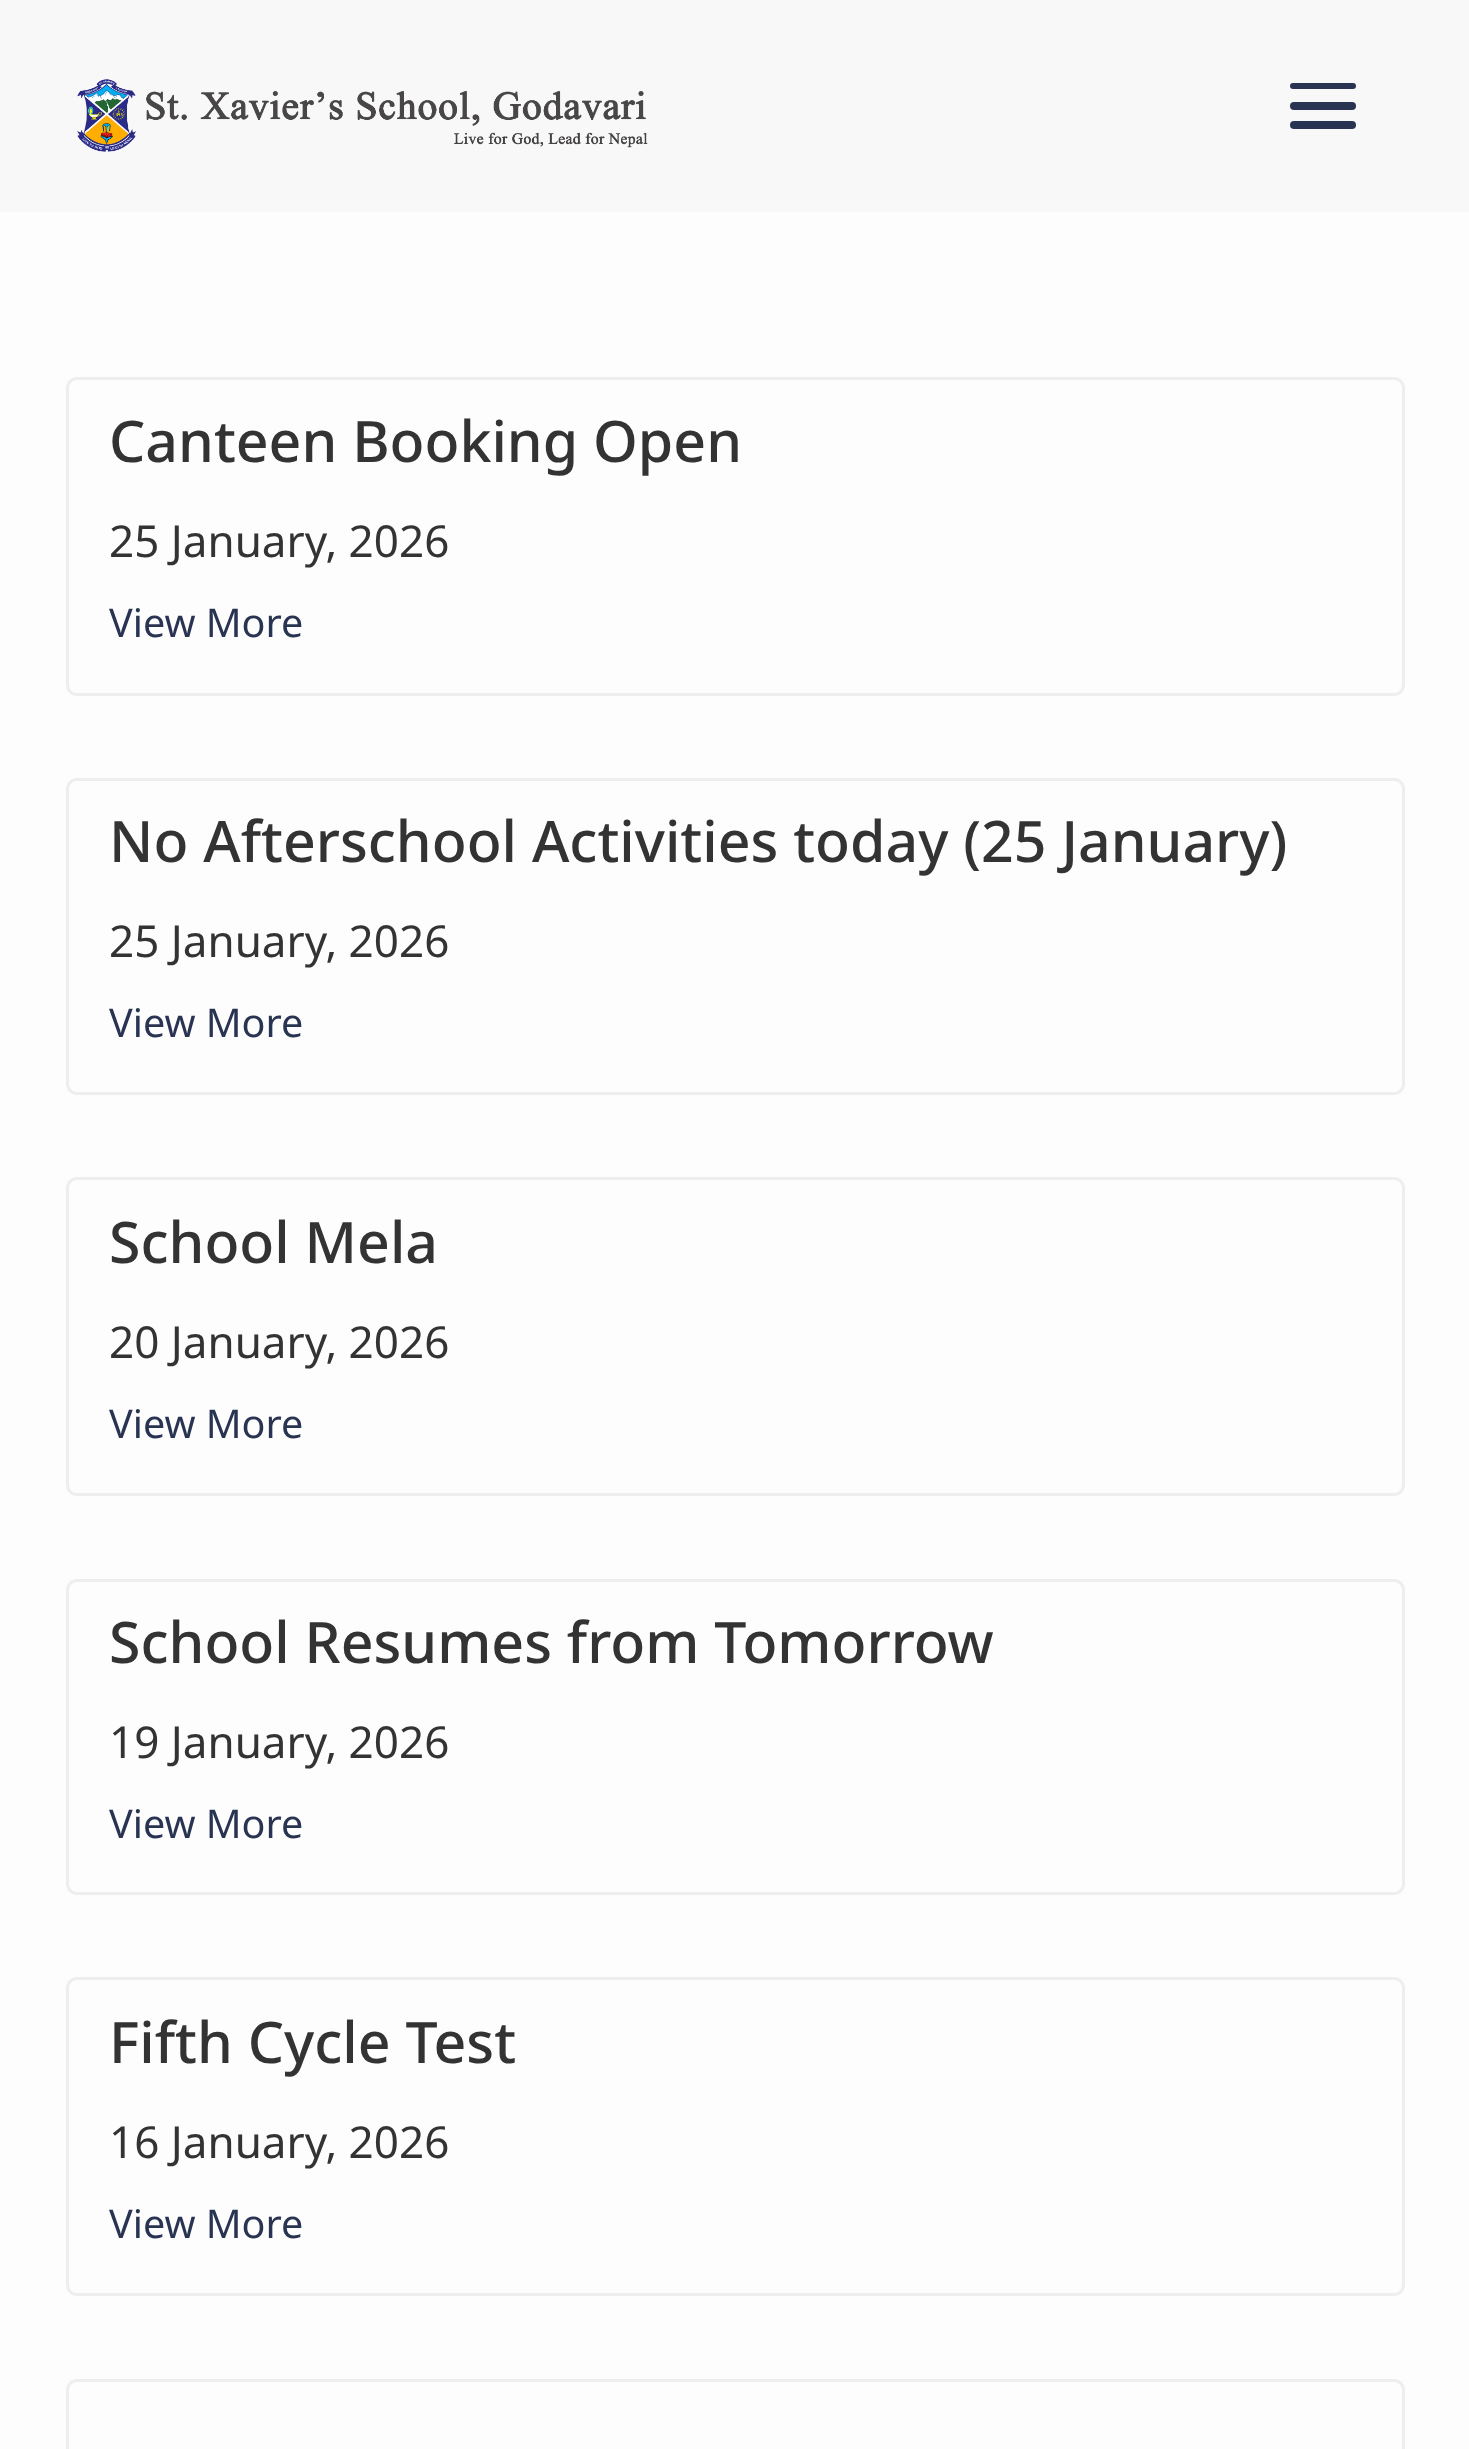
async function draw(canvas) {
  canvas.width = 1469
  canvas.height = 2449
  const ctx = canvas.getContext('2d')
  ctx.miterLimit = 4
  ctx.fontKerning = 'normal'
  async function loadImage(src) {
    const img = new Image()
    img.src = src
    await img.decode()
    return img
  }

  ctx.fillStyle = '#fdfdfd'
  ctx.fillRect(0, 0, 1469, 2449)
  ctx.fillStyle = '#f8f8f8'
  ctx.fillRect(0, 0, 1469, 212)
  ctx.drawImage(await loadImage('image0.png'), 77, 79, 571, 73)
  ctx.fillStyle = '#293352'
  ctx.beginPath()
  ctx.roundRect(1290, 83, 66, 6, 3)
  ctx.fill()
  ctx.beginPath()
  ctx.roundRect(1290, 102, 66, 8, 4)
  ctx.fill()
  ctx.beginPath()
  ctx.roundRect(1290, 121, 66, 8, 4)
  ctx.fill()
  ctx.beginPath()
  ctx.roundRect(67.5, 378.5, 1336, 316, 9.5)
  ctx.strokeStyle = '#eee'
  ctx.lineWidth = 3
  ctx.stroke()
  ctx.font = '500 57.2px Noto Sans'
  ctx.fillStyle = '#333'
  ctx.fillText('Canteen Booking Open', 109, 462)
  ctx.font = '44px Noto Sans'
  ctx.fillText('25 January, 2026', 109, 557)
  ctx.font = '39.5px Noto Sans'
  ctx.fillStyle = '#293352'
  ctx.fillText('View More', 109, 637)
  ctx.beginPath()
  ctx.roundRect(67.5, 779.5, 1336, 314, 9.5)
  ctx.stroke()
  ctx.font = '500 57.2px Noto Sans'
  ctx.fillStyle = '#333'
  ctx.fillText('No Afterschool Activities today (25 January)', 109, 862)
  ctx.font = '44px Noto Sans'
  ctx.fillText('25 January, 2026', 109, 957)
  ctx.font = '39.5px Noto Sans'
  ctx.fillStyle = '#293352'
  ctx.fillText('View More', 109, 1037)
  ctx.beginPath()
  ctx.roundRect(67.5, 1178.5, 1336, 316, 9.5)
  ctx.stroke()
  ctx.font = '500 57.2px Noto Sans'
  ctx.fillStyle = '#333'
  ctx.fillText('School Mela', 109, 1263)
  ctx.font = '44px Noto Sans'
  ctx.fillText('20 January, 2026', 109, 1358)
  ctx.font = '39.5px Noto Sans'
  ctx.fillStyle = '#293352'
  ctx.fillText('View More', 109, 1438)
  ctx.beginPath()
  ctx.roundRect(67.5, 1580.5, 1336, 313, 9.5)
  ctx.stroke()
  ctx.font = '500 57.2px Noto Sans'
  ctx.fillStyle = '#333'
  ctx.fillText('School Resumes from Tomorrow', 109, 1663)
  ctx.font = '44px Noto Sans'
  ctx.fillText('19 January, 2026', 109, 1758)
  ctx.font = '39.5px Noto Sans'
  ctx.fillStyle = '#293352'
  ctx.fillText('View More', 109, 1838)
  ctx.beginPath()
  ctx.roundRect(67.5, 1978.5, 1336, 316, 9.5)
  ctx.stroke()
  ctx.font = '500 57.2px Noto Sans'
  ctx.fillStyle = '#333'
  ctx.fillText('Fifth Cycle Test', 109, 2063)
  ctx.font = '44px Noto Sans'
  ctx.fillText('16 January, 2026', 109, 2158)
  ctx.font = '39.5px Noto Sans'
  ctx.fillStyle = '#293352'
  ctx.fillText('View More', 109, 2238)
  ctx.beginPath()
  ctx.roundRect(67.5, 2380.5, 1336, 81, 9.5)
  ctx.stroke()
}

draw(document.querySelector('canvas'))
